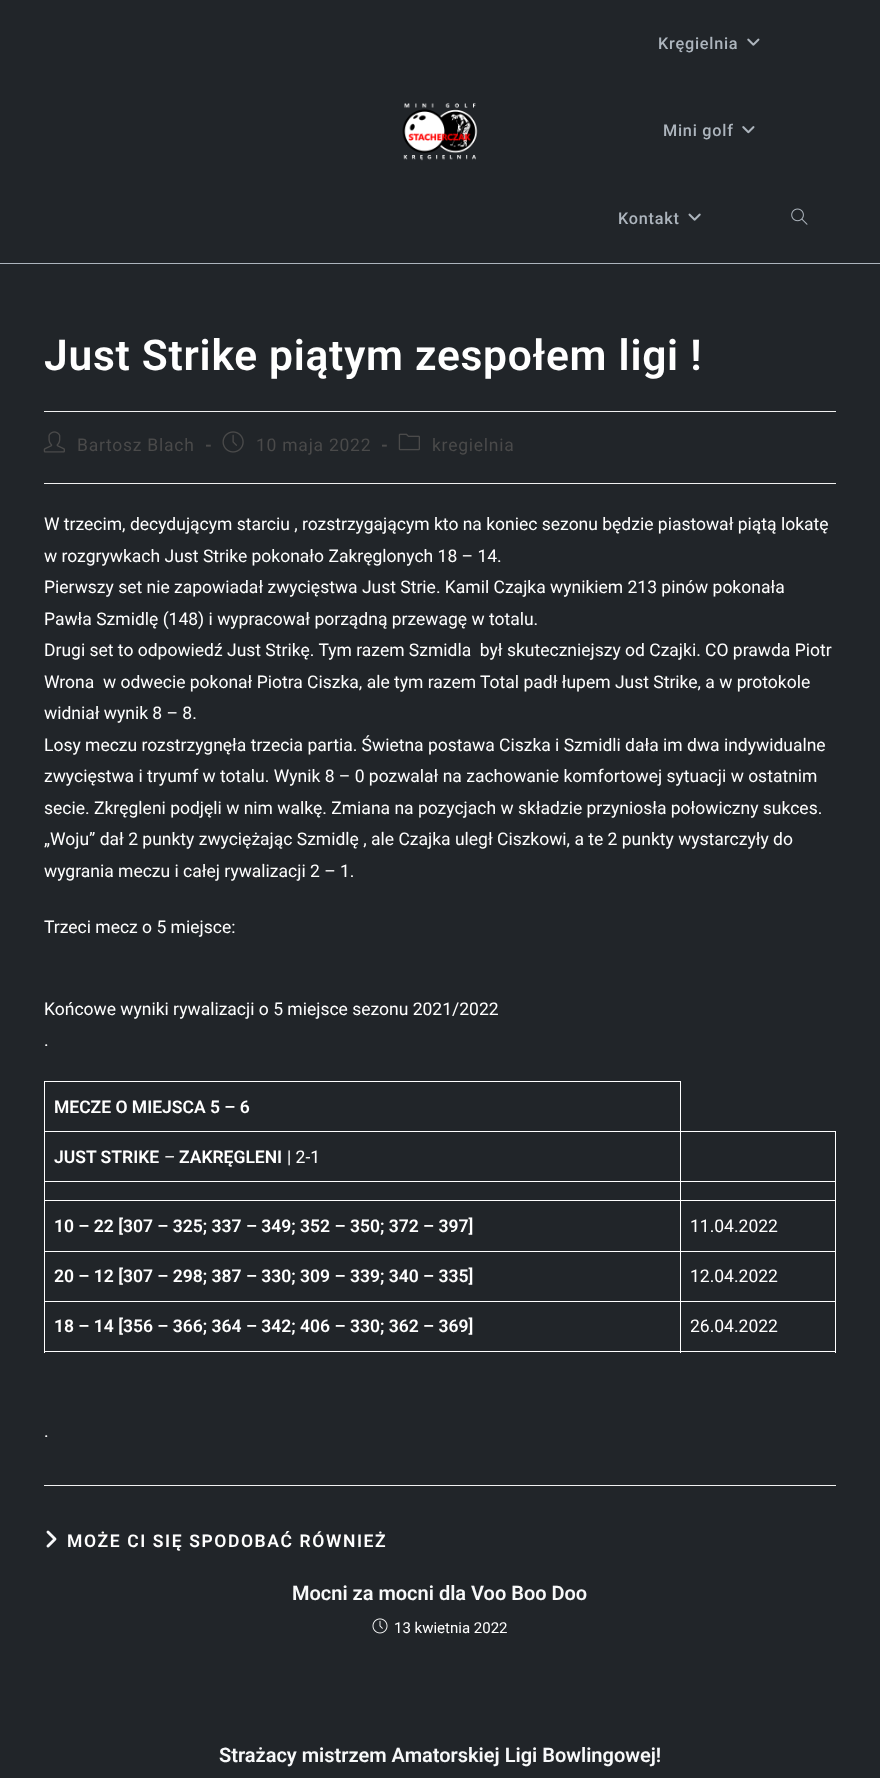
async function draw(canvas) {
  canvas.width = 880
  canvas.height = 1778
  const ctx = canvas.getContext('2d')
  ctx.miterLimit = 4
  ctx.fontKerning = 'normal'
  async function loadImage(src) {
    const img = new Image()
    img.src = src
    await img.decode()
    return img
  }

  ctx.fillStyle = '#212529'
  ctx.fillRect(0, 0, 880, 1778)
  ctx.fillStyle = '#adb5bd'
  ctx.fillRect(0, 263, 880, 1)
  ctx.drawImage(await loadImage('image0.png'), 402, 103, 76, 58)
  ctx.letterSpacing = '0.75px'
  ctx.font = '500 16.25px Roboto'
  ctx.fillText('Kręgielnia', 658, 49)
  ctx.drawImage(await loadImage('image1.png'), 747, 38, 13, 8)
  ctx.fillText('Mini golf', 663, 136)
  ctx.drawImage(await loadImage('image2.png'), 742, 126, 13, 8)
  ctx.fillText('Kontakt', 618, 224)
  ctx.drawImage(await loadImage('image3.png'), 688, 213, 13, 8)
  ctx.drawImage(await loadImage('image4.png'), 791, 208, 17, 17)
  ctx.fillStyle = '#f1f1f1'
  ctx.fillRect(44, 411, 792, 1)
  ctx.font = '600 42.5px Roboto'
  ctx.fillStyle = '#fff'
  ctx.fillText('Just Strike piątym zespołem ligi !', 44, 370)
  ctx.fillStyle = '#f1f1f1'
  ctx.fillRect(44, 483, 792, 1)
  ctx.drawImage(await loadImage('image5.png'), 43, 431, 22, 22)
  ctx.font = '17.5px Roboto'
  ctx.fillStyle = '#4a4a4a'
  ctx.fillText('Bartosz Blach', 77, 451)
  ctx.font = 'bold 17.5px Roboto'
  ctx.fillText('-', 205, 451)
  ctx.drawImage(await loadImage('image6.png'), 222, 431, 22, 22)
  ctx.font = '17.5px Roboto'
  ctx.fillText('10 maja 2022', 256, 451)
  ctx.font = 'bold 17.5px Roboto'
  ctx.fillText('-', 381, 451)
  ctx.drawImage(await loadImage('image7.png'), 398, 433, 22, 18)
  ctx.font = '17.5px Roboto'
  ctx.fillText('kregielnia', 432, 451)
  ctx.letterSpacing = '0px'
  ctx.fillStyle = '#fff'
  ctx.fillText('W trzecim, decydującym starciu , rozstrzygającym kto na koniec sezonu będzie piastował piątą lokatę', 44, 530)
  ctx.fillText('w rozgrywkach Just Strike pokonało Zakręglonych 18 – 14.', 44, 562)
  ctx.fillText('Pierwszy set nie zapowiadał zwycięstwa Just Strie. Kamil Czajka wynikiem 213 pinów pokonała', 44, 593)
  ctx.fillText('Pawła Szmidlę (148) i wypracował porządną przewagę w totalu.', 44, 625)
  ctx.fillText('Drugi set to odpowiedź Just Strikę. Tym razem Szmidla  był skuteczniejszy od Czajki. CO prawda Piotr', 44, 656)
  ctx.fillText('Wrona  w odwecie pokonał Piotra Ciszka, ale tym razem Total padł łupem Just Strike, a w protokole', 44, 688)
  ctx.fillText('widniał wynik 8 – 8.', 44, 719)
  ctx.fillText('Losy meczu rozstrzygnęła trzecia partia. Świetna postawa Ciszka i Szmidli dała im dwa indywidualne', 44, 751)
  ctx.fillText('zwycięstwa i tryumf w totalu. Wynik 8 – 0 pozwalał na zachowanie komfortowej sytuacji w ostatnim', 44, 782)
  ctx.fillText('secie. Zkręgleni podjęli w nim walkę. Zmiana na pozycjach w składzie przyniosła połowiczny sukces.', 44, 814)
  ctx.fillText('„Woju” dał 2 punkty zwyciężając Szmidlę , ale Czajka uległ Ciszkowi, a te 2 punkty wystarczyły do', 44, 845)
  ctx.fillText('wygrania meczu i całej rywalizacji 2 – 1.', 44, 877)
  ctx.fillText('Trzeci mecz o 5 miejsce:', 44, 933)
  ctx.fillText('Końcowe wyniki rywalizacji o 5 miejsce sezonu 2021/2022', 44, 1015)
  ctx.fillText('.', 44, 1046)
  ctx.fillRect(44, 1081, 637, 1)
  ctx.fillRect(680, 1131, 156, 1)
  ctx.fillRect(680, 1181, 156, 1)
  ctx.fillRect(680, 1200, 156, 1)
  ctx.fillRect(680, 1251, 156, 1)
  ctx.fillRect(680, 1301, 156, 1)
  ctx.fillRect(835, 1301, 1, 52)
  ctx.fillRect(680, 1351, 156, 1)
  ctx.fillRect(680, 1301, 1, 52)
  ctx.fillRect(44, 1301, 637, 1)
  ctx.fillRect(680, 1251, 1, 52)
  ctx.fillRect(44, 1251, 637, 1)
  ctx.fillRect(680, 1200, 1, 53)
  ctx.fillRect(44, 1200, 637, 1)
  ctx.fillRect(680, 1181, 1, 20)
  ctx.fillRect(44, 1181, 637, 1)
  ctx.fillRect(680, 1131, 1, 52)
  ctx.fillRect(44, 1131, 637, 1)
  ctx.fillRect(680, 1081, 1, 52)
  ctx.fillRect(44, 1351, 637, 1)
  ctx.fillRect(44, 1301, 1, 52)
  ctx.fillRect(44, 1251, 1, 52)
  ctx.fillRect(44, 1200, 1, 53)
  ctx.fillRect(44, 1181, 1, 20)
  ctx.fillRect(44, 1131, 1, 52)
  ctx.fillRect(44, 1081, 1, 52)
  ctx.font = '600 17.5px Roboto'
  ctx.fillText('MECZE O MIEJSCA 5 – 6', 54, 1113)
  ctx.fillText('JUST STRIKE', 54, 1163)
  ctx.font = '17.5px Roboto'
  ctx.fillText('–', 164, 1163)
  ctx.font = '600 17.5px Roboto'
  ctx.fillText('ZAKRĘGLENI', 179, 1163)
  ctx.font = '17.5px Roboto'
  ctx.fillText('| 2-1', 287, 1163)
  ctx.fillRect(835, 1251, 1, 52)
  ctx.fillRect(835, 1200, 1, 53)
  ctx.fillRect(835, 1181, 1, 20)
  ctx.fillRect(835, 1131, 1, 52)
  ctx.font = '600 17.5px Roboto'
  ctx.fillText('10 – 22 [307 – 325; 337 – 349; 352 – 350; 372 – 397]', 54, 1232)
  ctx.font = '17.5px Roboto'
  ctx.fillText('11.04.2022', 690, 1232)
  ctx.font = '600 17.5px Roboto'
  ctx.fillText('20 – 12 [307 – 298; 387 – 330; 309 – 339; 340 – 335]', 54, 1282)
  ctx.font = '17.5px Roboto'
  ctx.fillText('12.04.2022', 690, 1282)
  ctx.font = '600 17.5px Roboto'
  ctx.fillText('18 – 14 [356 – 366; 364 – 342; 406 – 330; 362 – 369]', 54, 1332)
  ctx.font = '17.5px Roboto'
  ctx.fillText('26.04.2022', 690, 1332)
  ctx.fillText('.', 44, 1437)
  ctx.fillStyle = '#f1f1f1'
  ctx.fillRect(44, 1485, 792, 1)
  ctx.drawImage(await loadImage('image8.png'), 46, 1530, 11, 18)
  ctx.letterSpacing = '1.6px'
  ctx.font = '600 17.5px Roboto'
  ctx.fillStyle = '#fff'
  ctx.fillText('MOŻE CI SIĘ SPODOBAĆ RÓWNIEŻ', 67, 1547)
  ctx.letterSpacing = '0px'
  ctx.font = '600 20px Roboto'
  ctx.fillStyle = '#f8f9fa'
  ctx.fillText('Mocni za mocni dla Voo Boo Doo', 292, 1600)
  ctx.drawImage(await loadImage('image9.png'), 372, 1618, 16, 16)
  ctx.font = '15px Roboto'
  ctx.fillStyle = '#fff'
  ctx.fillText('13 kwietnia 2022', 394, 1633)
  ctx.font = '600 20px Roboto'
  ctx.fillStyle = '#f8f9fa'
  ctx.fillText('Strażacy mistrzem Amatorskiej Ligi Bowlingowej!', 219, 1762)
}

draw(document.querySelector('canvas'))
